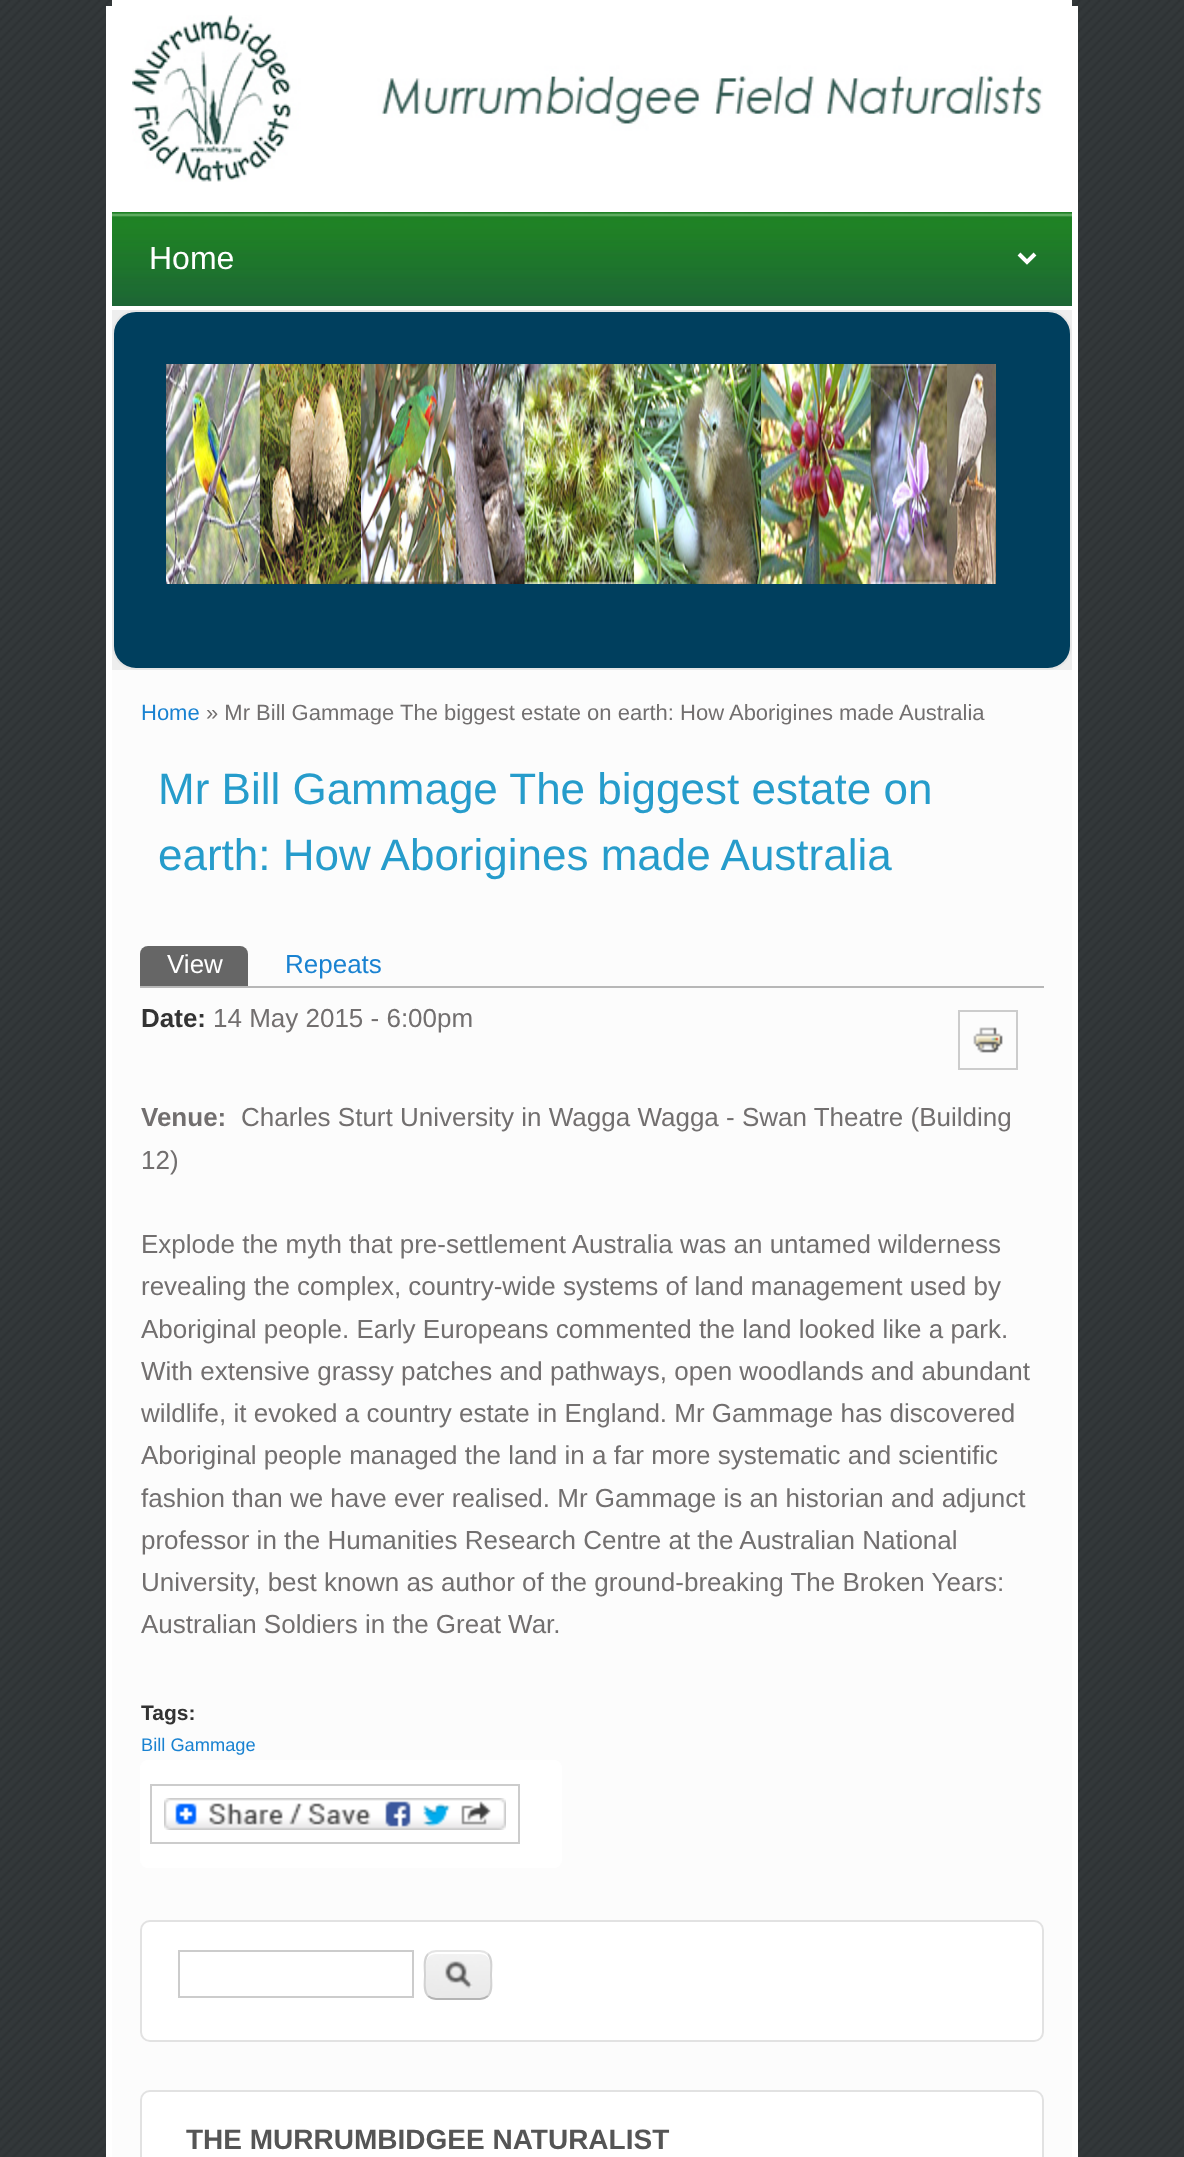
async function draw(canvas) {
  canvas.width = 1184
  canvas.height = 2157
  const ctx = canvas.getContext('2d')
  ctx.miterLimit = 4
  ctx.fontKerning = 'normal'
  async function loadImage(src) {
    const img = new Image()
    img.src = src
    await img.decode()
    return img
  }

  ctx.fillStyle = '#33383a'
  ctx.fillRect(0, 0, 1184, 2157)
  ctx.drawImage(await loadImage('image0.png'), 0, 0, 1184, 2157)
  ctx.fillStyle = '#eee'
  ctx.beginPath()
  ctx.moveTo(116, 0)
  ctx.lineTo(1068, 0)
  ctx.bezierCurveTo(1070, 0, 1072, 4, 1072, 10)
  ctx.lineTo(1072, 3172)
  ctx.bezierCurveTo(1072, 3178, 1070, 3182, 1068, 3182)
  ctx.lineTo(116, 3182)
  ctx.bezierCurveTo(114, 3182, 112, 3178, 112, 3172)
  ctx.lineTo(112, 10)
  ctx.bezierCurveTo(112, 4, 114, 0, 116, 0)
  ctx.closePath()
  ctx.fill()
  ctx.fillStyle = '#fff'
  ctx.fillRect(1072, 6, 6, 2151)
  ctx.fillRect(106, 6, 6, 2151)
  ctx.fillRect(112, 0, 960, 310)
  ctx.drawImage(await loadImage('image1.png'), 132, 15, 911, 167)
  ctx.drawImage(await loadImage('image2.png'), 112, 212, 960, 94)
  ctx.beginPath()
  ctx.moveTo(1019, 254)
  ctx.lineTo(1027, 262)
  ctx.lineTo(1035, 254)
  ctx.strokeStyle = '#fff'
  ctx.lineWidth = 4
  ctx.stroke()
  ctx.font = '32px Liberation Sans'
  ctx.fillText('Home', 149, 269)
  ctx.fillStyle = '#003f5e'
  ctx.beginPath()
  ctx.roundRect(113, 311, 958, 358, 23)
  ctx.fill()
  ctx.strokeStyle = '#e6e6e6'
  ctx.lineWidth = 2
  ctx.stroke()
  ctx.drawImage(await loadImage('image3.png'), 166, 364, 830, 220)
  ctx.fillStyle = '#fcfcfc'
  ctx.fillRect(112, 670, 960, 1487)
  ctx.font = '22px Liberation Sans'
  ctx.fillStyle = '#1982d1'
  ctx.fillText('Home', 141, 720)
  ctx.fillStyle = '#726f6f'
  ctx.fillText('» Mr Bill Gammage The biggest estate on earth: How Aborigines made Australia', 206, 720)
  ctx.font = '44px Liberation Sans'
  ctx.fillStyle = '#269ccb'
  ctx.fillText('Mr Bill Gammage The biggest estate on', 158, 804)
  ctx.fillText('earth: How Aborigines made Australia', 158, 870)
  ctx.fillStyle = '#b7b7b7'
  ctx.fillRect(140, 986, 904, 2)
  ctx.fillStyle = '#666'
  ctx.beginPath()
  ctx.roundRect(140, 946, 108, 40, [8, 8, 0, 0])
  ctx.fill()
  ctx.font = '26px Liberation Sans'
  ctx.fillStyle = '#fff'
  ctx.fillText('View', 167, 973)
  ctx.fillStyle = '#1982d1'
  ctx.fillText('Repeats', 285, 973)
  ctx.font = 'bold 26px Liberation Sans'
  ctx.fillStyle = '#333'
  ctx.fillText('Date:', 141, 1027)
  ctx.font = '26px Liberation Sans'
  ctx.fillStyle = '#726f6f'
  ctx.fillText('14 May 2015 - 6:00pm', 213, 1027)
  ctx.strokeStyle = '#ccc'
  ctx.strokeRect(959, 1011, 58, 58)
  ctx.drawImage(await loadImage('image4.png'), 973, 1027, 30, 26)
  ctx.font = 'bold 26px Liberation Sans'
  ctx.fillText('Venue:', 141, 1126)
  ctx.font = '26px Liberation Sans'
  ctx.fillText('Charles Sturt University in Wagga Wagga - Swan Theatre (Building', 241, 1126)
  ctx.fillText('12)', 141, 1169)
  ctx.fillText('Explode the myth that pre-settlement Australia was an untamed wilderness', 141, 1253)
  ctx.fillText('revealing the complex, country-wide systems of land management used by', 141, 1295)
  ctx.fillText('Aboriginal people. Early Europeans commented the land looked like a park.', 141, 1338)
  ctx.fillText('With extensive grassy patches and pathways, open woodlands and abundant', 141, 1380)
  ctx.fillText('wildlife, it evoked a country estate in England. Mr Gammage has discovered', 141, 1422)
  ctx.fillText('Aboriginal people managed the land in a far more systematic and scientific', 141, 1464)
  ctx.fillText('fashion than we have ever realised. Mr Gammage is an historian and adjunct', 141, 1507)
  ctx.fillText('professor in the Humanities Research Centre at the Australian National', 141, 1549)
  ctx.fillText('University, best known as author of the ground-breaking The Broken Years:', 141, 1591)
  ctx.fillText('Australian Soldiers in the Great War.', 141, 1633)
  ctx.font = 'bold 21px Liberation Sans'
  ctx.fillStyle = '#333'
  ctx.fillText('Tags:', 141, 1720)
  ctx.font = '18.25px Liberation Sans'
  ctx.fillStyle = '#1982d1'
  ctx.fillText('Bill Gammage', 141, 1751)
  ctx.fillStyle = '#fff'
  ctx.beginPath()
  ctx.roundRect(140, 1760, 422, 108, 8)
  ctx.fill()
  ctx.strokeRect(151, 1785, 368, 58)
  ctx.drawImage(await loadImage('image5.png'), 164, 1798, 342, 32)
  ctx.beginPath()
  ctx.roundRect(141, 1921, 902, 120, 9)
  ctx.fill()
  ctx.strokeStyle = '#e2e2e2'
  ctx.stroke()
  ctx.strokeStyle = '#ccc'
  ctx.strokeRect(179, 1951, 234, 46)
  ctx.drawImage(await loadImage('image6.png'), 424, 1952, 68, 48)
  ctx.beginPath()
  ctx.moveTo(436, 1954)
  ctx.lineTo(480, 1954)
  ctx.bezierCurveTo(486, 1954, 490, 1958, 490, 1964)
  ctx.bezierCurveTo(490, 1952, 483, 1952, 473, 1952)
  ctx.lineTo(443, 1952)
  ctx.bezierCurveTo(433, 1952, 426, 1952, 426, 1964)
  ctx.bezierCurveTo(426, 1958, 430, 1954, 436, 1954)
  ctx.closePath()
  ctx.fill()
  ctx.beginPath()
  ctx.moveTo(428, 1954)
  ctx.bezierCurveTo(430.5, 1952, 433, 1951, 436, 1951)
  ctx.lineTo(480, 1951)
  ctx.bezierCurveTo(483, 1951, 485.5, 1952, 488, 1954)
  ctx.strokeStyle = '#e4e4e4'
  ctx.stroke()
  ctx.beginPath()
  ctx.moveTo(488, 1954)
  ctx.bezierCurveTo(493, 1959.5, 491, 1968.5, 491, 1975)
  ctx.bezierCurveTo(491, 1981.5, 493, 1990.5, 488, 1996)
  ctx.strokeStyle = '#d2d2d2'
  ctx.stroke()
  ctx.beginPath()
  ctx.moveTo(488, 1996)
  ctx.bezierCurveTo(485.5, 1998, 483, 1999, 480, 1999)
  ctx.lineTo(436, 1999)
  ctx.bezierCurveTo(433, 1999, 430.5, 1998, 428, 1996)
  ctx.strokeStyle = '#b4b4b4'
  ctx.stroke()
  ctx.beginPath()
  ctx.moveTo(428, 1996)
  ctx.bezierCurveTo(423, 1990.5, 425, 1981.5, 425, 1975)
  ctx.bezierCurveTo(425, 1968.5, 423, 1959.5, 428, 1954)
  ctx.strokeStyle = '#d2d2d2'
  ctx.stroke()
  ctx.beginPath()
  ctx.roundRect(141, 2091, 902, 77, 9)
  ctx.fill()
  ctx.strokeStyle = '#e2e2e2'
  ctx.stroke()
  ctx.font = 'bold 28px Liberation Sans'
  ctx.fillStyle = '#555'
  ctx.fillText('THE MURRUMBIDGEE NATURALIST', 186, 2149)
}

draw(document.querySelector('canvas'))
